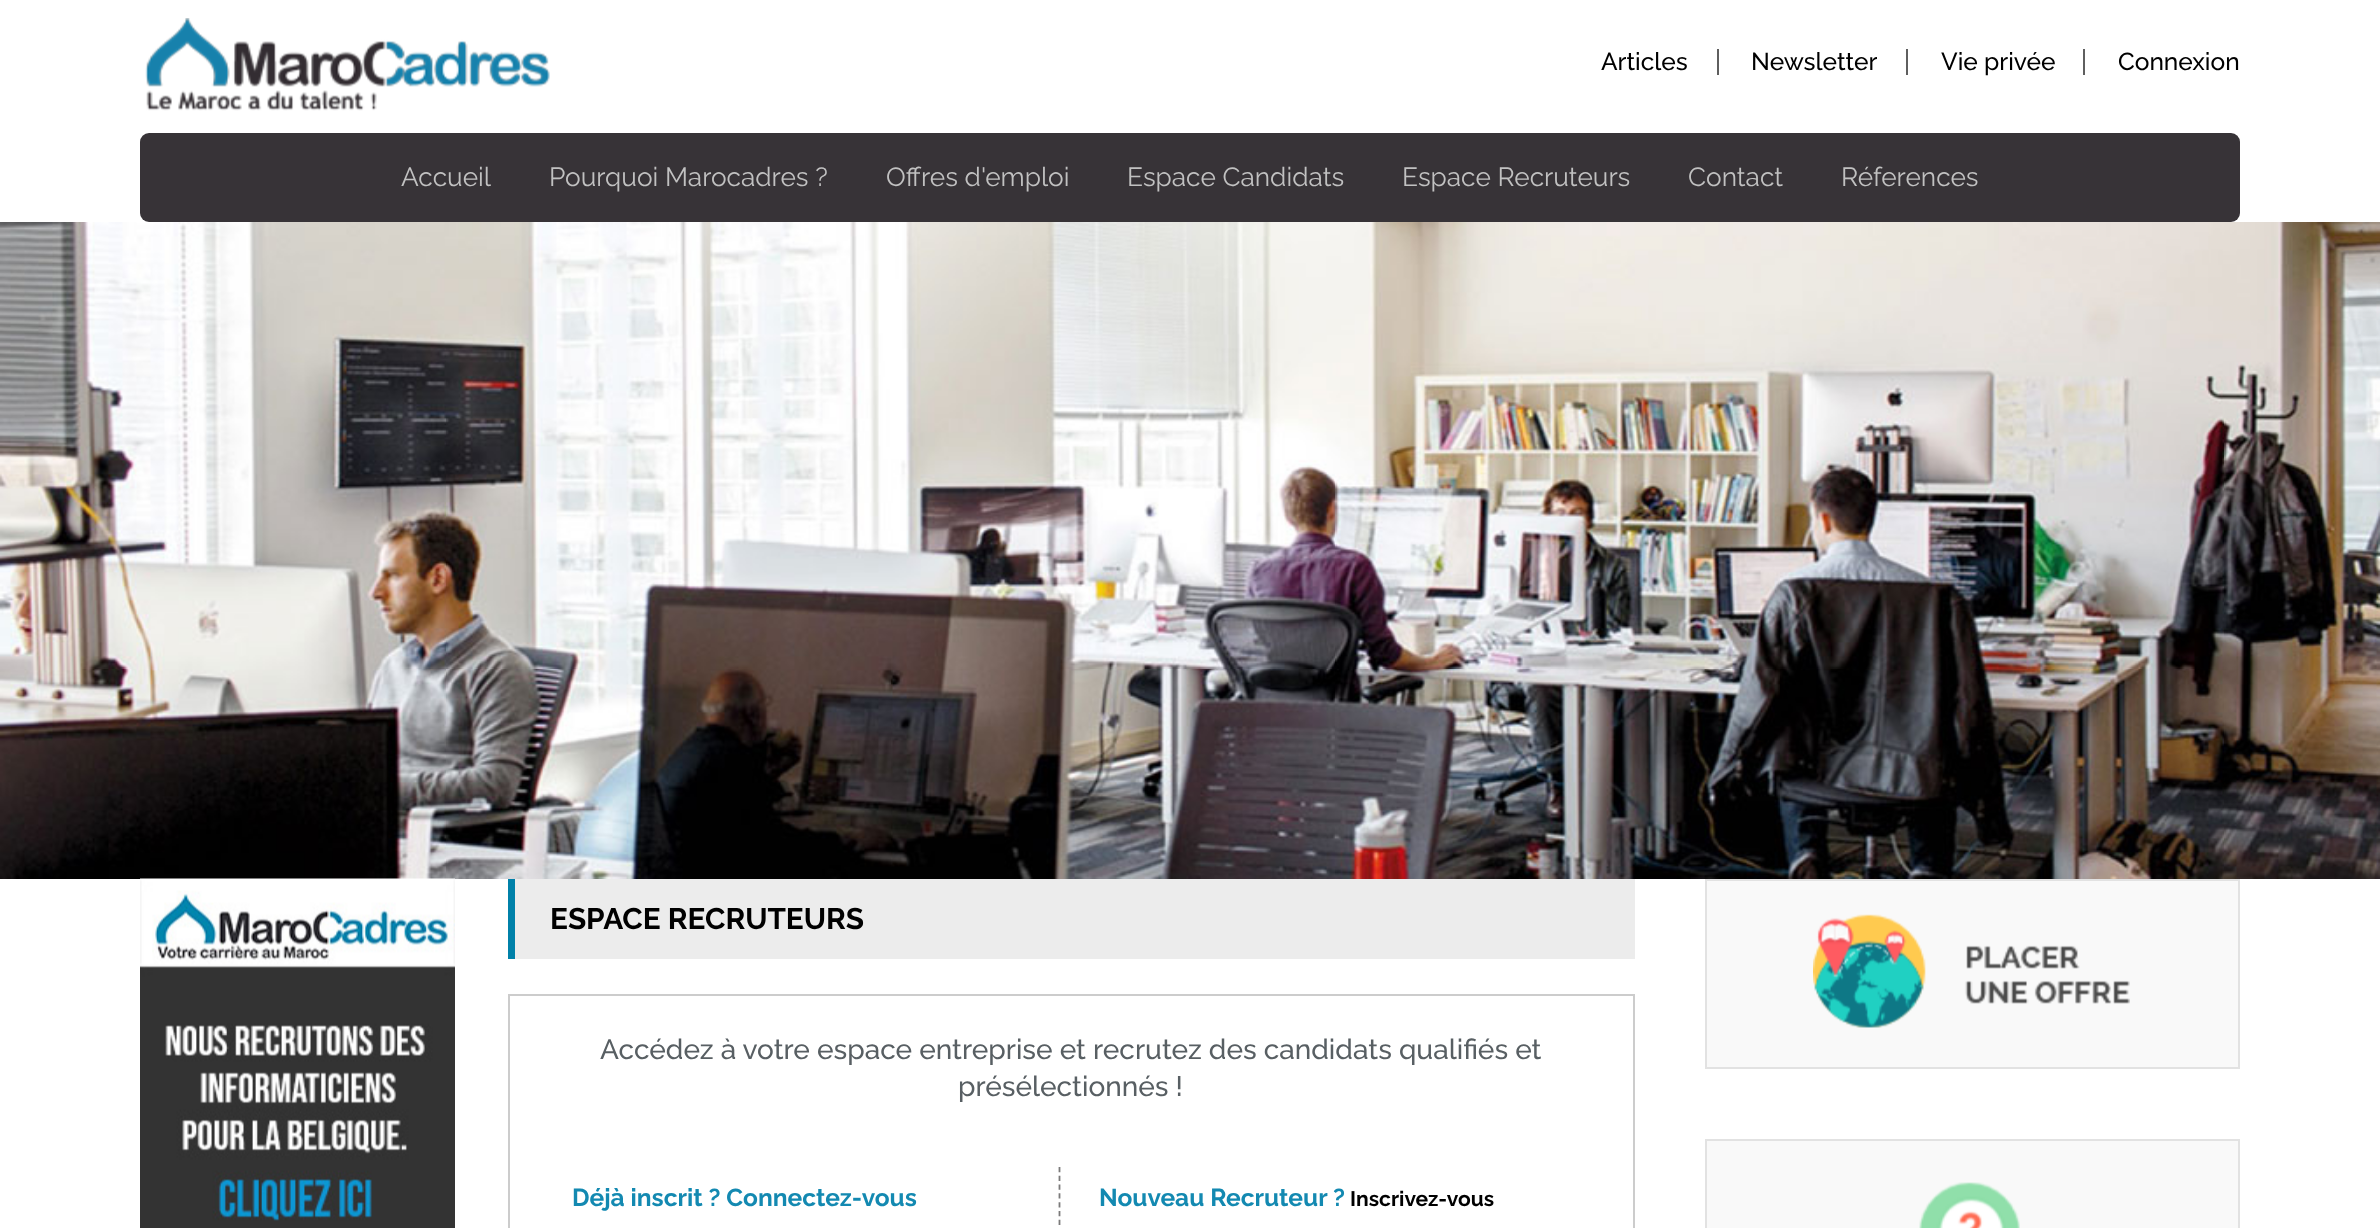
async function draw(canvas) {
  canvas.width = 2380
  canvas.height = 1228
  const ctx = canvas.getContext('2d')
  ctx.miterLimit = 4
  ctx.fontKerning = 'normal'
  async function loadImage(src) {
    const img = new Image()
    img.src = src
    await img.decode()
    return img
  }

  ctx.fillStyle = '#fff'
  ctx.fillRect(0, 0, 2380, 1228)
  ctx.drawImage(await loadImage('image0.png'), 145, 18, 405, 93)
  ctx.fillStyle = '#5f5f5f'
  ctx.fillRect(1717, 49, 2, 26)
  ctx.font = '500 24.5px Raleway'
  ctx.fillStyle = '#000'
  ctx.fillText('Articles', 1601, 70)
  ctx.fillStyle = '#5f5f5f'
  ctx.fillRect(1906, 49, 2, 26)
  ctx.fillStyle = '#000'
  ctx.fillText('Newsletter', 1751, 70)
  ctx.fillStyle = '#5f5f5f'
  ctx.fillRect(2083, 49, 2, 26)
  ctx.fillStyle = '#000'
  ctx.fillText('Vie privée', 1941, 70)
  ctx.fillText('Connexion', 2118, 70)
  ctx.fillStyle = '#373337'
  ctx.beginPath()
  ctx.roundRect(140, 133, 2100, 89, 9)
  ctx.fill()
  ctx.font = '26.25px Raleway'
  ctx.fillStyle = '#c1c1c1'
  ctx.fillText('Accueil', 401, 186)
  ctx.fillText('Pourquoi Marocadres ?', 549, 186)
  ctx.fillText('Offres d\'emploi', 886, 186)
  ctx.fillText('Espace Candidats', 1127, 186)
  ctx.fillText('Espace Recruteurs', 1402, 186)
  ctx.fillText('Contact', 1688, 186)
  ctx.fillText('Réferences', 1841, 186)
  ctx.drawImage(await loadImage('image1.png'), 0, 222, 2380, 657)
  ctx.drawImage(await loadImage('image2.png'), 140, 878, 315, 350)
  ctx.fillStyle = '#ececec'
  ctx.fillRect(515, 879, 1120, 80)
  ctx.fillStyle = '#0081a9'
  ctx.fillRect(508, 879, 7, 80)
  ctx.font = 'bold 29.75px Raleway'
  ctx.fillStyle = '#000'
  ctx.fillText('ESPACE RECRUTEURS', 550, 929)
  ctx.strokeStyle = '#ccc'
  ctx.lineWidth = 2
  ctx.strokeRect(509, 995, 1125, 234)
  ctx.font = '500 28px Raleway'
  ctx.fillStyle = '#585f63'
  ctx.fillText('Accédez à votre espace entreprise et recrutez des candidats qualifiés et', 600, 1059)
  ctx.fillText('présélectionnés !', 958, 1096)
  ctx.beginPath()
  ctx.moveTo(1059.5, 1167)
  ctx.lineTo(1059.5, 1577)
  ctx.strokeStyle = '#7b7a7a'
  ctx.lineWidth = 1.8
  ctx.setLineDash([5.25, 3.54])
  ctx.stroke()
  ctx.font = 'bold 24.5px Raleway'
  ctx.fillStyle = '#1389b1'
  ctx.fillText('Déjà inscrit ? Connectez-vous', 572, 1206)
  ctx.fillText('Nouveau Recruteur ?', 1099, 1206)
  ctx.font = 'bold 21px Raleway'
  ctx.fillStyle = '#000'
  ctx.fillText('Inscrivez-vous', 1350, 1206)
  ctx.fillStyle = '#f9f9f9'
  ctx.beginPath()
  ctx.rect(1706, 880, 533, 188)
  ctx.fill()
  ctx.strokeStyle = '#e2e2e2'
  ctx.lineWidth = 2
  ctx.setLineDash([])
  ctx.stroke()
  ctx.drawImage(await loadImage('image3.png'), 1813, 914, 317, 114)
  ctx.beginPath()
  ctx.rect(1706, 1140, 533, 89)
  ctx.fill()
  ctx.stroke()
  ctx.drawImage(await loadImage('image4.png'), 1919, 1182, 101, 46)
}

draw(document.querySelector('canvas'))
